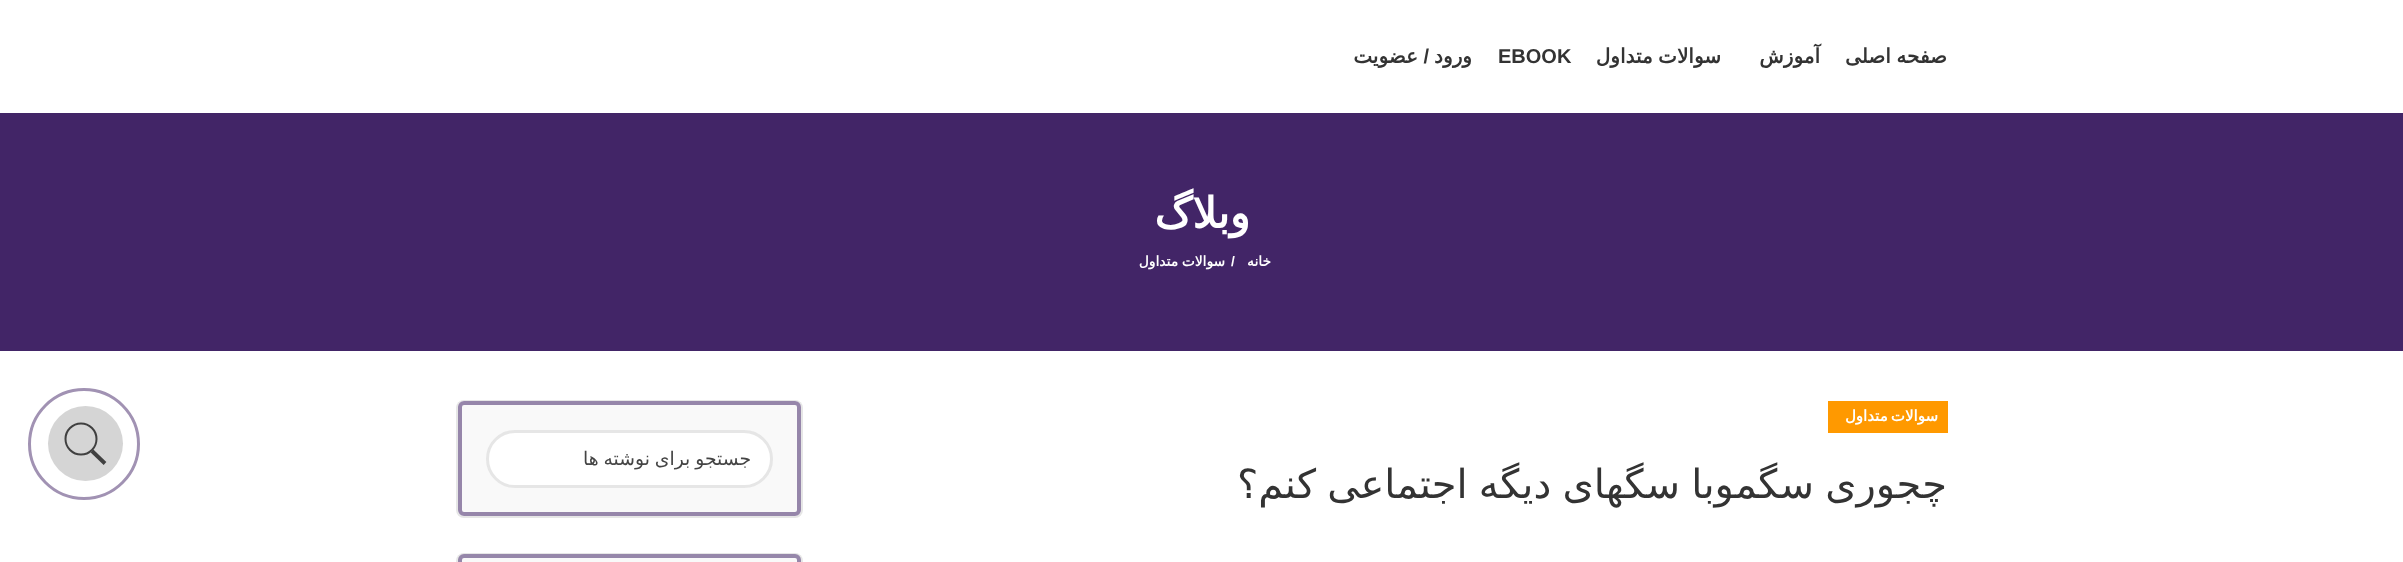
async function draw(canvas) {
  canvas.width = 2403
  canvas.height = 562
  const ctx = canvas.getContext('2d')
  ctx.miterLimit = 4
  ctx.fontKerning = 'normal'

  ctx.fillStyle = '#fff'
  ctx.fillRect(0, 0, 2403, 562)
  ctx.wordSpacing = '-1px'
  ctx.direction = 'rtl'
  ctx.font = 'bold 20px DejaVu Sans'
  ctx.fillStyle = '#333'
  ctx.fillText('صفحه اصلی', 1947, 63)
  ctx.wordSpacing = '0px'
  ctx.fillText('آموزش', 1820, 63)
  ctx.wordSpacing = '-1px'
  ctx.fillText('سوالات متداول', 1721, 63)
  ctx.wordSpacing = '0px'
  ctx.direction = 'ltr'
  ctx.font = 'bold 20px Liberation Sans'
  ctx.fillText('EBOOK', 1498, 63)
  ctx.direction = 'rtl'
  ctx.font = 'bold 20px DejaVu Sans'
  ctx.fillText('ورود', 1472, 63)
  ctx.font = 'bold 20px Liberation Sans'
  ctx.fillText('/', 1429, 63)
  ctx.font = 'bold 20px DejaVu Sans'
  ctx.fillText('عضویت', 1418, 63)
  ctx.fillStyle = '#422567'
  ctx.fillRect(0, 113, 2403, 238)
  ctx.font = 'bold 42.5px DejaVu Sans'
  ctx.fillStyle = '#fff'
  ctx.fillText('وبلاگ', 1250, 228)
  ctx.letterSpacing = '0.4px'
  ctx.font = 'bold 13.75px DejaVu Sans'
  ctx.fillText('خانه', 1271, 266)
  ctx.direction = 'ltr'
  ctx.font = 'bold 13.75px Liberation Sans'
  ctx.fillText('/', 1231, 266)
  ctx.wordSpacing = '-1px'
  ctx.direction = 'rtl'
  ctx.font = 'bold 13.75px DejaVu Sans'
  ctx.fillText('سوالات متداول', 1225, 266)
  ctx.fillStyle = '#f90'
  ctx.fillRect(1828, 401, 120, 32)
  ctx.wordSpacing = '-2px'
  ctx.font = 'bold 15px DejaVu Sans'
  ctx.fillStyle = '#fff'
  ctx.fillText('سوالات متداول', 1938, 421)
  ctx.letterSpacing = '0px'
  ctx.wordSpacing = '-1.5px'
  ctx.font = '40px DejaVu Sans'
  ctx.fillStyle = '#333'
  ctx.fillText('چجوری سگموبا سگهای دیگه اجتماعی کنم؟', 1947, 498)
  ctx.save()
  ctx.beginPath()
  ctx.moveTo(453, 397)
  ctx.lineTo(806, 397)
  ctx.lineTo(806, 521)
  ctx.lineTo(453, 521)
  ctx.closePath()
  ctx.moveTo(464, 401)
  ctx.lineTo(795, 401)
  ctx.bezierCurveTo(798.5, 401, 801, 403.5, 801, 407)
  ctx.lineTo(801, 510)
  ctx.bezierCurveTo(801, 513.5, 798.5, 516, 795, 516)
  ctx.lineTo(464, 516)
  ctx.bezierCurveTo(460.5, 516, 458, 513.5, 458, 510)
  ctx.lineTo(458, 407)
  ctx.bezierCurveTo(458, 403.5, 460.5, 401, 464, 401)
  ctx.closePath()
  ctx.clip('evenodd')
  ctx.fillStyle = '#e6e6e6'
  ctx.filter = 'blur(0.5px)'
  ctx.beginPath()
  ctx.roundRect(456, 400, 347, 118, 8)
  ctx.fill()
  ctx.filter = 'none'
  ctx.restore()
  ctx.fillStyle = '#f1f1f175'
  ctx.beginPath()
  ctx.roundRect(458, 401, 343, 115, 6)
  ctx.fill()
  ctx.beginPath()
  ctx.roundRect(460, 403, 339, 111, 4)
  ctx.strokeStyle = '#4225678a'
  ctx.lineWidth = 4
  ctx.stroke()
  ctx.fillStyle = '#fff'
  ctx.beginPath()
  ctx.roundRect(486, 430, 287, 58, 29)
  ctx.fill()
  ctx.beginPath()
  ctx.roundRect(487.5, 431.5, 284, 55, 27.5)
  ctx.strokeStyle = '#81818133'
  ctx.lineWidth = 3
  ctx.stroke()
  ctx.wordSpacing = '-1px'
  ctx.font = '18.75px DejaVu Sans'
  ctx.fillStyle = '#444'
  ctx.fillText('جستجو برای نوشته ها', 751, 465)
  ctx.fillStyle = '#e6e6e6'
  ctx.filter = 'blur(0.5px)'
  ctx.beginPath()
  ctx.roundRect(456, 553, 347, 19, 8)
  ctx.fill()
  ctx.filter = 'none'
  ctx.fillStyle = '#f9f9f9'
  ctx.beginPath()
  ctx.roundRect(460, 556, 339, 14, 4)
  ctx.fill()
  ctx.strokeStyle = '#9687aa'
  ctx.lineWidth = 4
  ctx.stroke()
  ctx.beginPath()
  ctx.arc(84, 444, 54.5, 0, 2 * Math.PI)
  ctx.strokeStyle = '#a192b3'
  ctx.lineWidth = 3
  ctx.stroke()
  ctx.fillStyle = '#d5d5d5'
  ctx.beginPath()
  ctx.arc(85.5, 443.5, 37.5, 0, 2 * Math.PI)
  ctx.fill()
  ctx.beginPath()
  ctx.arc(81, 439, 15.5, 0, 2 * Math.PI)
  ctx.strokeStyle = '#404040'
  ctx.lineWidth = 2
  ctx.stroke()
  ctx.beginPath()
  ctx.moveTo(92, 451)
  ctx.lineTo(105, 463.5)
  ctx.lineWidth = 3.9
  ctx.stroke()
}

draw(document.querySelector('canvas'))
